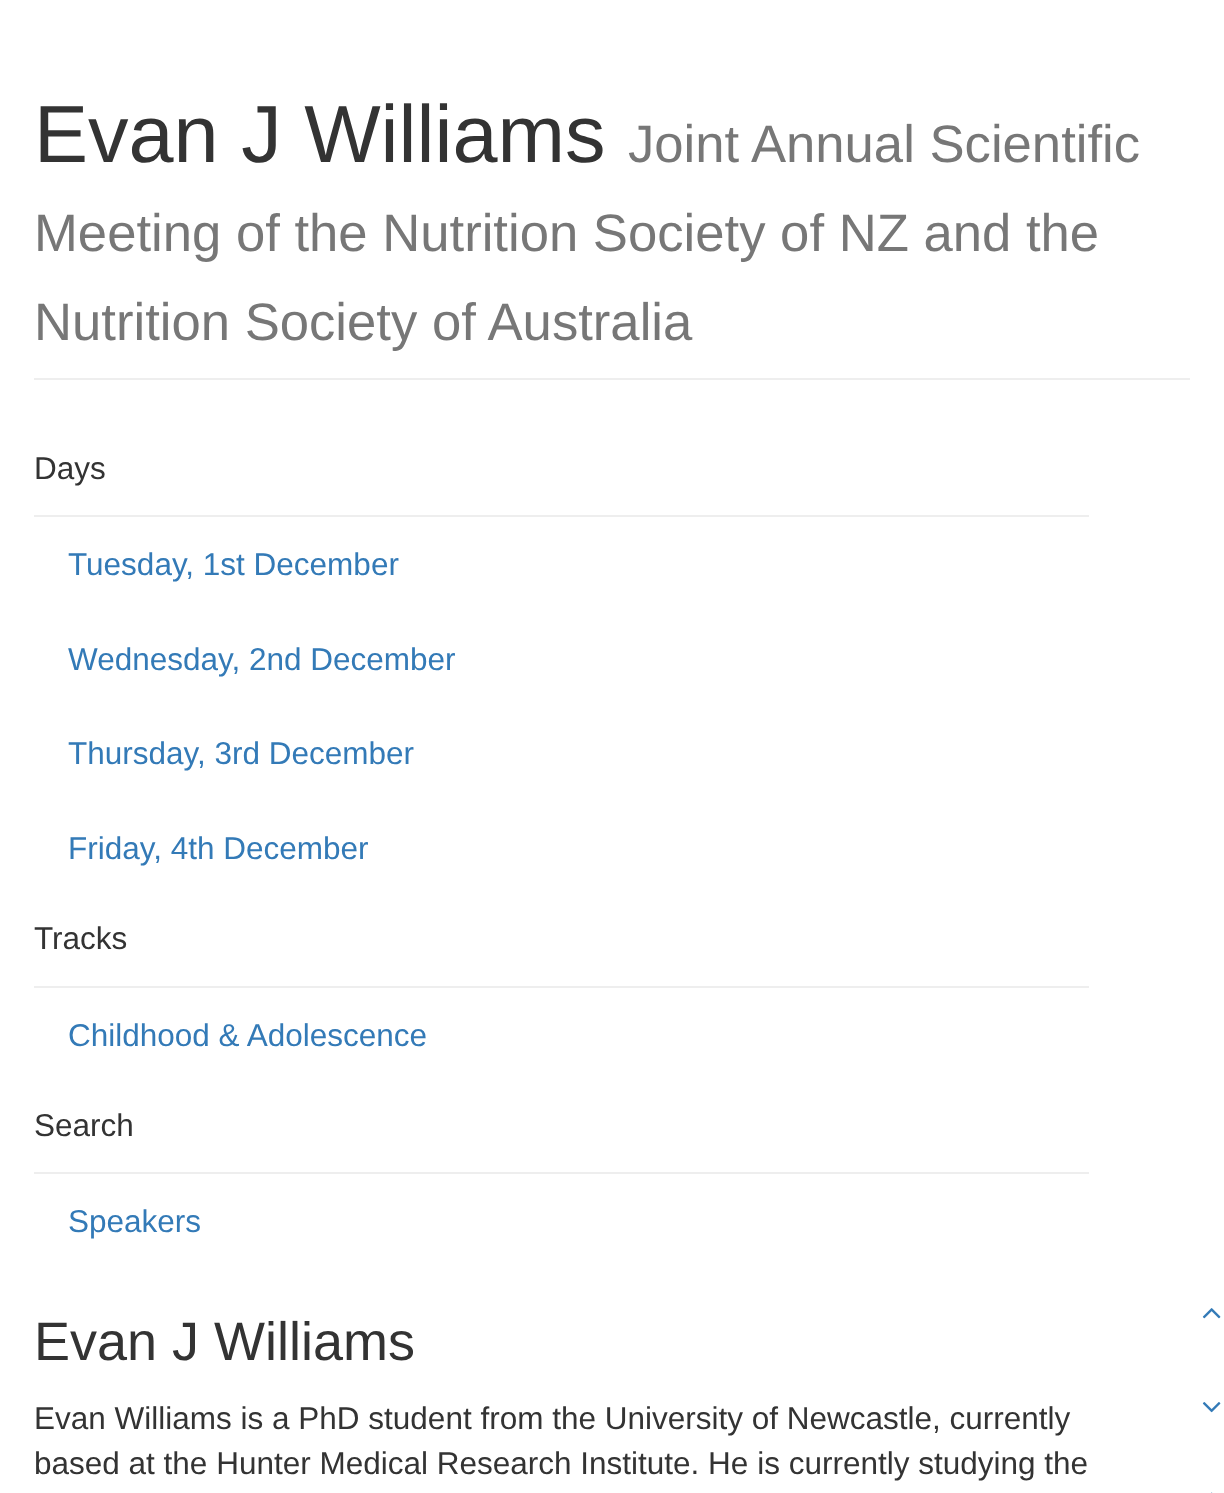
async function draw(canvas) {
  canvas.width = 1224
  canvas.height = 1493
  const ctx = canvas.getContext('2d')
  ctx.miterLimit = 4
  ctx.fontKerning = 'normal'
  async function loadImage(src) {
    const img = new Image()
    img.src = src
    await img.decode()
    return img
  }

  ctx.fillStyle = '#fff'
  ctx.fillRect(0, 0, 1224, 1493)
  ctx.fillStyle = '#eee'
  ctx.fillRect(34, 378, 1156, 2)
  ctx.font = '81px Liberation Sans'
  ctx.fillStyle = '#333'
  ctx.fillText('Evan J Williams', 34, 162)
  ctx.font = '52.65px Liberation Sans'
  ctx.fillStyle = '#777'
  ctx.fillText('Joint Annual Scientific', 628, 162)
  ctx.fillText('Meeting of the Nutrition Society of NZ and the', 34, 251)
  ctx.fillText('Nutrition Society of Australia', 34, 340)
  ctx.fillStyle = '#eee'
  ctx.fillRect(34, 515, 1055, 2)
  ctx.font = '31.5px Liberation Sans'
  ctx.fillStyle = '#333'
  ctx.fillText('Days', 34, 479)
  ctx.fillStyle = '#337ab7'
  ctx.fillText('Tuesday, 1st December', 68, 575)
  ctx.fillText('Wednesday, 2nd December', 68, 670)
  ctx.fillText('Thursday, 3rd December', 68, 764)
  ctx.fillText('Friday, 4th December', 68, 859)
  ctx.fillStyle = '#eee'
  ctx.fillRect(34, 986, 1055, 2)
  ctx.fillStyle = '#333'
  ctx.fillText('Tracks', 34, 949)
  ctx.fillStyle = '#337ab7'
  ctx.fillText('Childhood & Adolescence', 68, 1046)
  ctx.fillStyle = '#eee'
  ctx.fillRect(34, 1172, 1055, 2)
  ctx.fillStyle = '#333'
  ctx.fillText('Search', 34, 1136)
  ctx.fillStyle = '#337ab7'
  ctx.fillText('Speakers', 68, 1232)
  ctx.font = '54px Liberation Sans'
  ctx.fillStyle = '#333'
  ctx.fillText('Evan J Williams', 34, 1360)
  ctx.font = '31.5px Liberation Sans'
  ctx.fillText('Evan Williams is a PhD student from the University of Newcastle, currently', 34, 1429)
  ctx.fillText('based at the Hunter Medical Research Institute. He is currently studying the', 34, 1474)
  ctx.drawImage(await loadImage('image0.png'), 1202, 1308, 19, 11)
  ctx.drawImage(await loadImage('image1.png'), 1202, 1402, 19, 11)
  ctx.drawImage(await loadImage('image2.png'), 1211, 1492, 2, 1)
}

draw(document.querySelector('canvas'))
